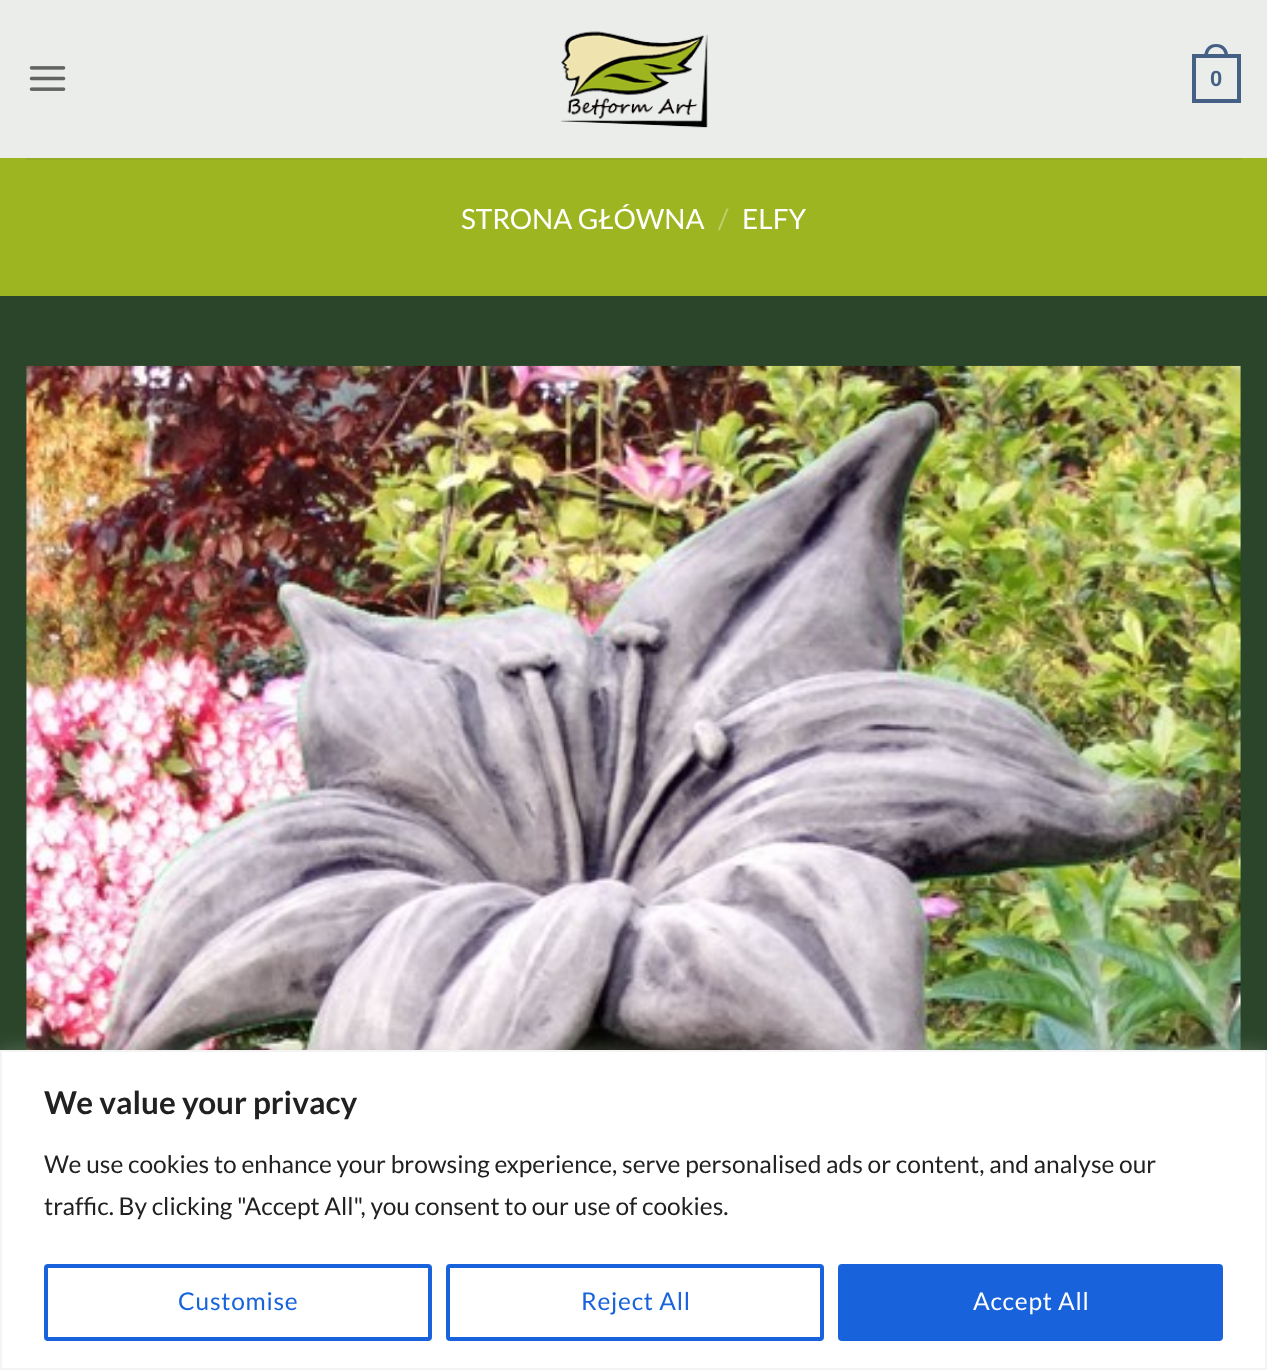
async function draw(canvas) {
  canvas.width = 1267
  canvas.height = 1370
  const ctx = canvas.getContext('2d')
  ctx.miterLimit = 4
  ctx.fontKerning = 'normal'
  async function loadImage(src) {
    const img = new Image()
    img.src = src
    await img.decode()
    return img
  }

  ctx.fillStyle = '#9db521'
  ctx.fillRect(0, 0, 1267, 1370)
  ctx.fillStyle = '#ebedeb'
  ctx.fillRect(0, 0, 1267, 158)
  ctx.drawImage(await loadImage('image0.png'), 29, 66, 37, 25)
  ctx.drawImage(await loadImage('image1.png'), 560, 31, 148, 97)
  ctx.strokeStyle = '#446084'
  ctx.lineWidth = 4
  ctx.strokeRect(1194, 56, 45, 45)
  ctx.fillStyle = '#446084'
  ctx.beginPath()
  ctx.moveTo(1216, 44)
  ctx.bezierCurveTo(1224.5, 44, 1228.5, 50, 1228.5, 58)
  ctx.lineTo(1204, 58)
  ctx.bezierCurveTo(1204, 50, 1208, 44, 1216, 44)
  ctx.closePath()
  ctx.moveTo(1216, 47)
  ctx.bezierCurveTo(1222.5, 47, 1225, 52, 1225, 58)
  ctx.lineTo(1207.5, 58)
  ctx.bezierCurveTo(1207.5, 52, 1210, 47, 1216, 47)
  ctx.closePath()
  ctx.fill('evenodd')
  ctx.font = 'bold 22px Liberation Sans'
  ctx.fillText('0', 1210, 86)
  ctx.fillStyle = '#95aa25'
  ctx.fillRect(26, 158, 1215, 2)
  ctx.font = '28px Lato'
  ctx.fillStyle = '#fff'
  ctx.fillText('STRONA GŁÓWNA', 461, 229)
  ctx.fillStyle = '#bfcf6f'
  ctx.fillText('/', 718, 229)
  ctx.fillStyle = '#fff'
  ctx.fillText('ELFY', 742, 229)
  ctx.fillStyle = '#2a452a'
  ctx.fillRect(0, 296, 1267, 754)
  ctx.drawImage(await loadImage('image2.png'), 26, 365, 1215, 685)
  ctx.fillStyle = '#acabab4d'
  ctx.filter = 'blur(9px)'
  ctx.beginPath()
  ctx.rect(0, 1048, 1267, 321)
  ctx.fill()
  ctx.filter = 'none'
  ctx.fillStyle = '#fff'
  ctx.beginPath()
  ctx.rect(1, 1051, 1265, 318)
  ctx.fill()
  ctx.strokeStyle = '#f4f4f4'
  ctx.lineWidth = 2
  ctx.stroke()
  ctx.font = 'bold 31.5px Lato'
  ctx.fillStyle = '#212121'
  ctx.fillText('We value your privacy', 44, 1114)
  ctx.font = '24.5px Lato'
  ctx.fillText('We use cookies to enhance your browsing experience, serve personalised ads or content, and analyse our', 44, 1173)
  ctx.fillText('traffic. By clicking "Accept All", you consent to our use of cookies.', 44, 1215)
  ctx.beginPath()
  ctx.roundRect(46, 1266, 384, 73, 2)
  ctx.strokeStyle = '#1863dc'
  ctx.lineWidth = 4
  ctx.stroke()
  ctx.letterSpacing = '0.75px'
  ctx.fillStyle = '#1863dc'
  ctx.fillText('Customise', 178, 1310)
  ctx.beginPath()
  ctx.roundRect(448, 1266, 374, 73, 2)
  ctx.stroke()
  ctx.fillText('Reject All', 581, 1310)
  ctx.beginPath()
  ctx.roundRect(840, 1266, 381, 73, 2)
  ctx.fill()
  ctx.stroke()
  ctx.fillStyle = '#fff'
  ctx.fillText('Accept All', 973, 1310)
}

draw(document.querySelector('canvas'))
